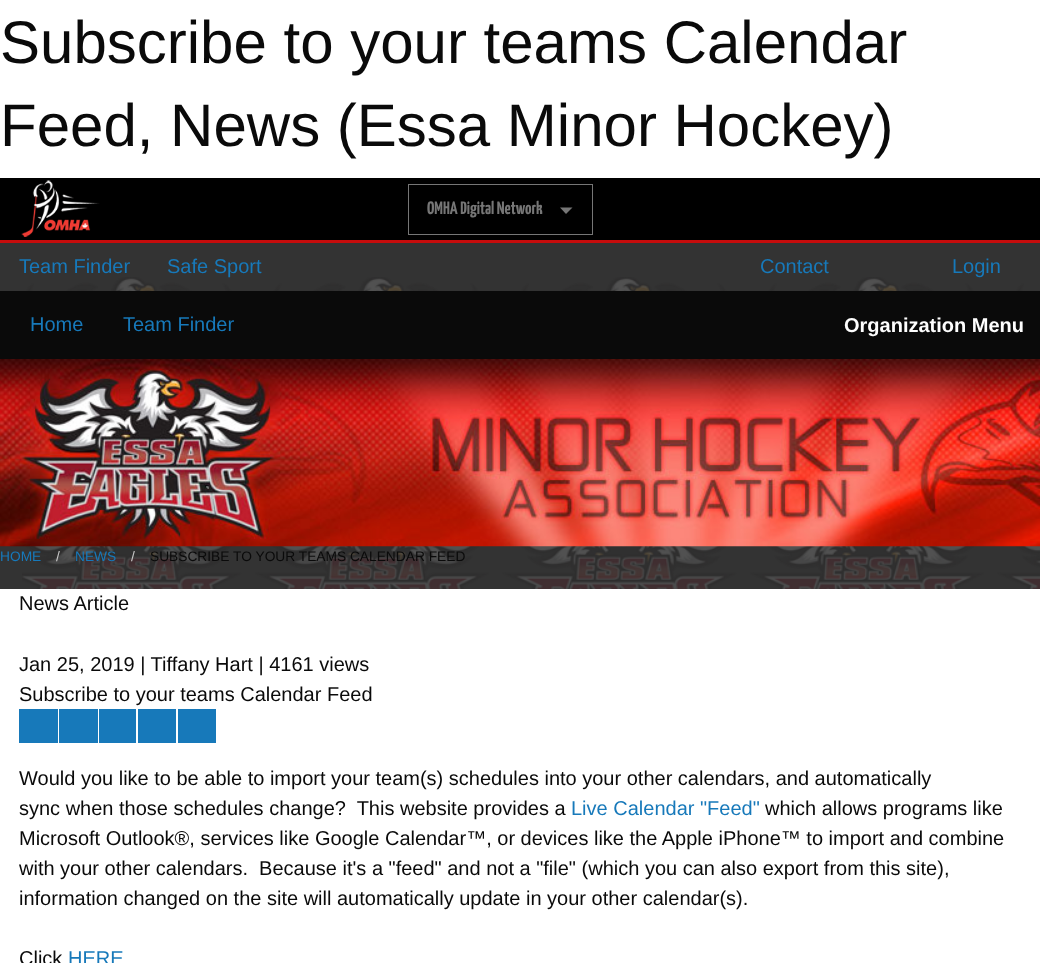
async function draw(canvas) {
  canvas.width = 1040
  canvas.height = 963
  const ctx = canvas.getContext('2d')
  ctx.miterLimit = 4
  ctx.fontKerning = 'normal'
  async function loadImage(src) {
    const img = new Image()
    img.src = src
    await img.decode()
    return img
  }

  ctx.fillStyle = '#fff'
  ctx.fillRect(0, 0, 1040, 963)
  ctx.font = '60px Liberation Sans'
  ctx.fillStyle = '#0a0a0a'
  ctx.fillText('Subscribe to your teams Calendar', 0, 63)
  ctx.fillText('Feed, News (Essa Minor Hockey)', 0, 146)
  ctx.fillStyle = '#000'
  ctx.fillRect(0, 178, 1040, 62)
  ctx.fillStyle = '#c60c0c'
  ctx.fillRect(0, 240, 1040, 3)
  ctx.drawImage(await loadImage('image0.png'), 21, 180, 79, 57)
  ctx.strokeStyle = '#767676'
  ctx.strokeRect(408.5, 184.5, 184, 50)
  ctx.font = '200 18px Yanone Kaffeesatz'
  ctx.fillStyle = '#767676'
  ctx.fillText('OMHA Digital Network', 427, 214)
  ctx.beginPath()
  ctx.moveTo(560, 207.5)
  ctx.lineTo(572.5, 207.5)
  ctx.lineTo(566, 214)
  ctx.closePath()
  ctx.fill()
  ctx.fillStyle = '#333'
  ctx.fillRect(0, 243, 1040, 346)
  ctx.drawImage(await loadImage('image1.png'), 22, 277, 1018, 312)
  ctx.font = '20px Liberation Sans'
  ctx.fillStyle = '#1779ba'
  ctx.fillText('Team Finder', 19, 273)
  ctx.fillText('Safe Sport', 167, 273)
  ctx.fillText('Contact', 760, 273)
  ctx.fillText('Login', 952, 273)
  ctx.fillStyle = '#0a0a0a'
  ctx.fillRect(0, 291, 1040, 68)
  ctx.fillStyle = '#1779ba'
  ctx.fillText('Home', 30, 331)
  ctx.fillText('Team Finder', 123, 331)
  ctx.font = 'bold 20px Liberation Sans'
  ctx.fillStyle = '#fefefe'
  ctx.fillText('Organization Menu', 844, 332)
  ctx.drawImage(await loadImage('image2.png'), 0, 359, 1040, 188)
  ctx.font = '13.75px Liberation Sans'
  ctx.fillStyle = '#1779ba'
  ctx.fillText('HOME', 0, 561)
  ctx.fillStyle = '#cacaca'
  ctx.fillText('/', 56, 561)
  ctx.fillStyle = '#1779ba'
  ctx.fillText('NEWS', 75, 561)
  ctx.fillStyle = '#cacaca'
  ctx.fillText('/', 131, 561)
  ctx.fillStyle = '#0a0a0a'
  ctx.fillText('SUBSCRIBE TO YOUR TEAMS CALENDAR FEED', 150, 561)
  ctx.font = '20px Liberation Sans'
  ctx.fillText('News Article', 19, 610)
  ctx.fillText('Jan 25, 2019 | Tiffany Hart | 4161 views', 19, 671)
  ctx.fillText('Subscribe to your teams Calendar Feed', 19, 701)
  ctx.fillStyle = '#1779ba'
  ctx.fillRect(19, 709, 39, 34)
  ctx.fillRect(59, 709, 39, 34)
  ctx.fillRect(99, 709, 37, 34)
  ctx.fillRect(138, 709, 38, 34)
  ctx.fillRect(178, 709, 38, 34)
  ctx.fillStyle = '#0a0a0a'
  ctx.fillText('Would you like to be able to import your team(s) schedules into your other calendars, and automatically', 19, 785)
  ctx.fillText('sync when those schedules change?  This website provides a', 19, 815)
  ctx.fillStyle = '#1779ba'
  ctx.fillText('Live Calendar "Feed"', 571, 815)
  ctx.fillStyle = '#0a0a0a'
  ctx.fillText('which allows programs like', 765, 815)
  ctx.fillText('Microsoft Outlook®, services like Google Calendar™, or devices like the Apple iPhone™ to import and combine', 19, 845)
  ctx.fillText('with your other calendars.  Because it\'s a "feed" and not a "file" (which you can also export from this site),', 19, 875)
  ctx.fillText('information changed on the site will automatically update in your other calendar(s).', 19, 905)
  ctx.fillText('Click', 19, 965)
  ctx.fillStyle = '#1779ba'
  ctx.fillText('HERE', 68, 965)
}

draw(document.querySelector('canvas'))
